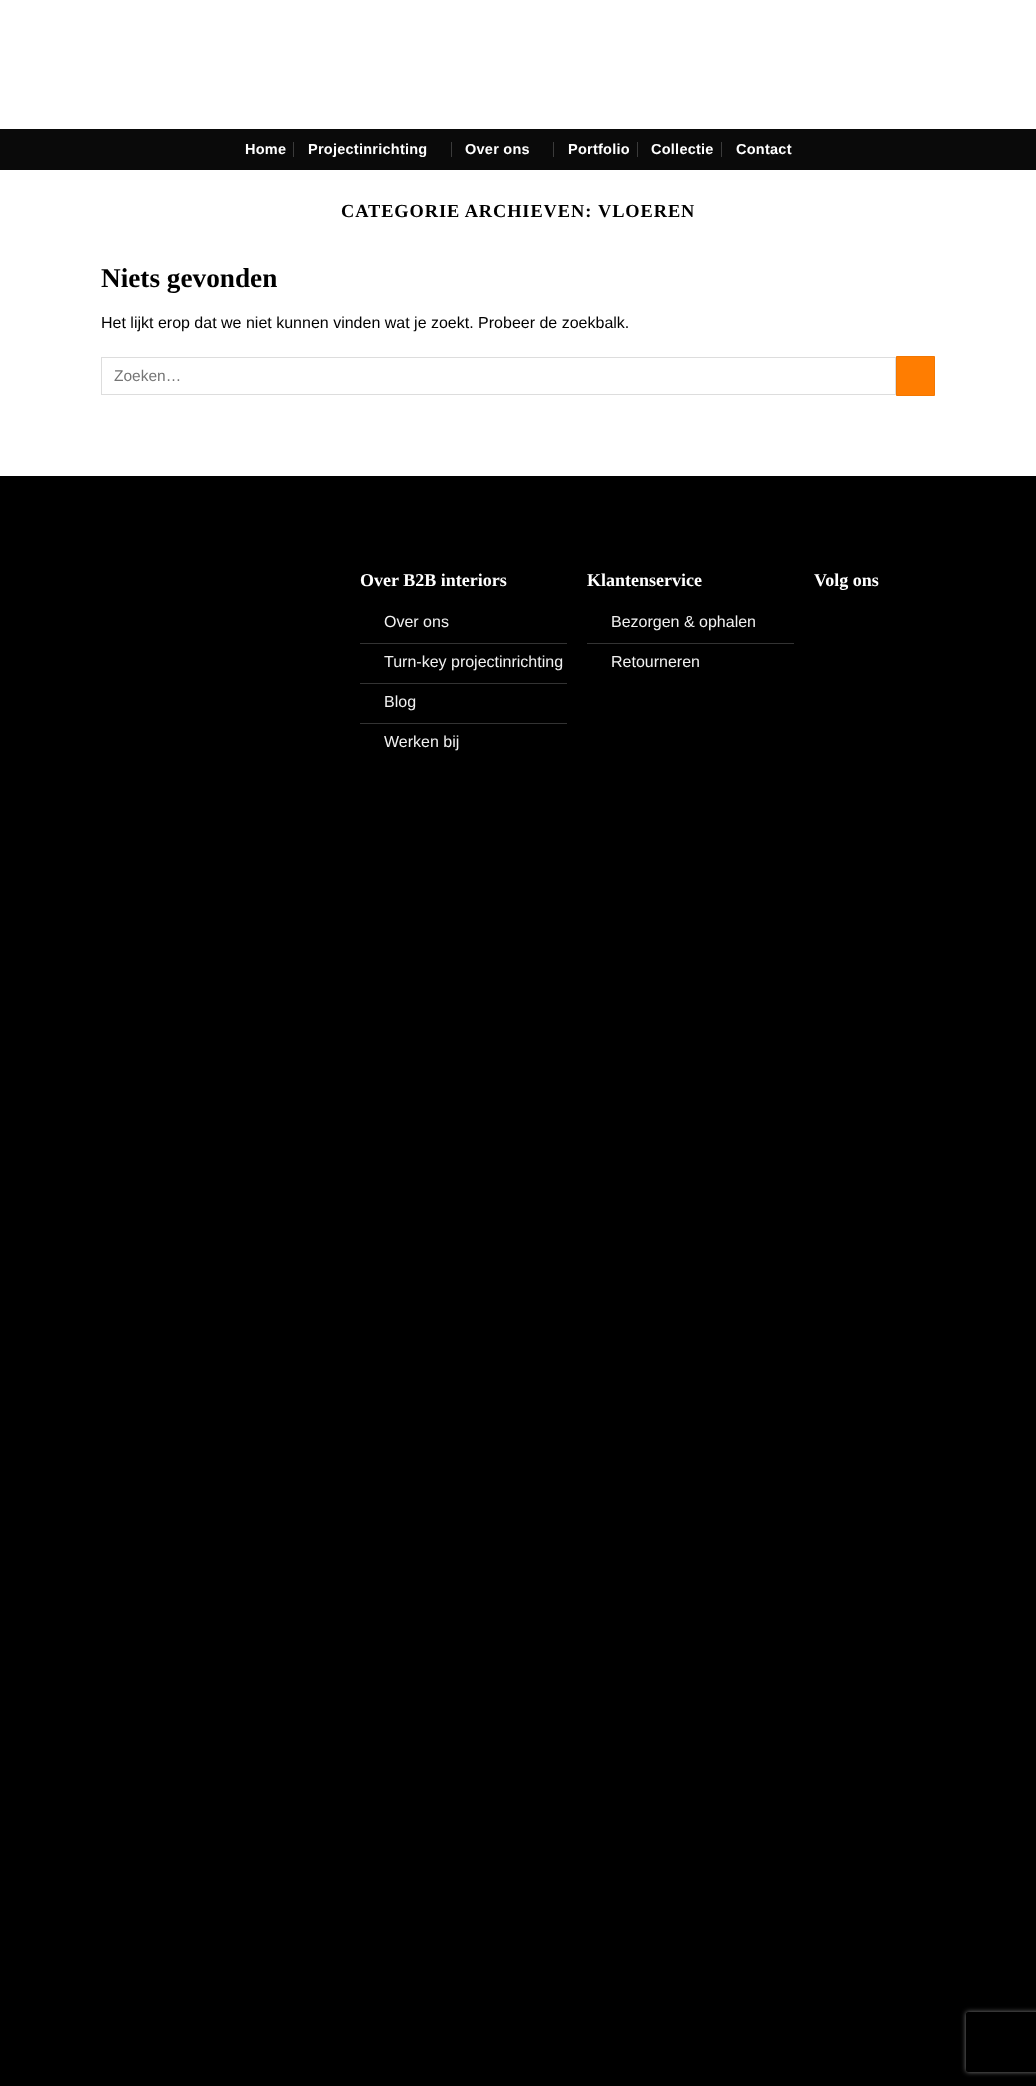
async function draw(canvas) {
  canvas.width = 1036
  canvas.height = 2086
  const ctx = canvas.getContext('2d')
  ctx.miterLimit = 4
  ctx.fontKerning = 'normal'

  ctx.fillStyle = '#fff'
  ctx.fillRect(0, 0, 1036, 2086)
  ctx.fillStyle = '#0a0a0a'
  ctx.fillRect(0, 129, 1036, 41)
  ctx.letterSpacing = '0.25px'
  ctx.font = 'bold 14.5px Liberation Sans'
  ctx.fillStyle = '#fff'
  ctx.fillText('Home', 245, 154)
  ctx.fillStyle = '#3b3b3b'
  ctx.fillRect(293, 142, 1, 15)
  ctx.fillStyle = '#fff'
  ctx.fillText('Projectinrichting', 308, 154)
  ctx.fillStyle = '#3b3b3b'
  ctx.fillRect(451, 142, 1, 15)
  ctx.fillStyle = '#fff'
  ctx.fillText('Over ons', 465, 154)
  ctx.fillStyle = '#3b3b3b'
  ctx.fillRect(553, 142, 1, 15)
  ctx.fillStyle = '#fff'
  ctx.fillText('Portfolio', 568, 154)
  ctx.fillStyle = '#3b3b3b'
  ctx.fillRect(637, 142, 1, 15)
  ctx.fillStyle = '#fff'
  ctx.fillText('Collectie', 651, 154)
  ctx.fillStyle = '#3b3b3b'
  ctx.fillRect(721, 142, 1, 15)
  ctx.fillStyle = '#fff'
  ctx.fillText('Contact', 736, 154)
  ctx.letterSpacing = '0.9px'
  ctx.font = 'bold 18.4px Liberation Serif'
  ctx.fillStyle = '#000'
  ctx.fillText('CATEGORIE ARCHIEVEN:', 341, 217)
  ctx.fillText('VLOEREN', 598, 217)
  ctx.letterSpacing = '0px'
  ctx.font = 'bold 27.25px Liberation Serif'
  ctx.fillText('Niets gevonden', 101, 287)
  ctx.font = '16px Liberation Sans'
  ctx.fillText('Het lijkt erop dat we niet kunnen vinden wat je zoekt. Probeer de zoekbalk.', 101, 328)
  ctx.strokeStyle = '#ddd'
  ctx.strokeRect(101.5, 357.5, 794, 37)
  ctx.font = '15.5px Liberation Sans'
  ctx.fillStyle = '#757575'
  ctx.fillText('Zoeken…', 114, 381)
  ctx.fillStyle = '#ff7d01'
  ctx.beginPath()
  ctx.rect(896.5, 356.5, 38, 39)
  ctx.fill()
  ctx.strokeStyle = '#f27701'
  ctx.stroke()
  ctx.fillStyle = '#000'
  ctx.fillRect(0, 476, 1036, 1610)
  ctx.font = 'bold 18px Liberation Serif'
  ctx.fillStyle = '#fff'
  ctx.fillText('Over B2B interiors', 360, 586)
  ctx.fillStyle = '#333'
  ctx.fillRect(360, 643, 207, 1)
  ctx.font = '16px Liberation Sans'
  ctx.fillStyle = '#f1f1f1'
  ctx.fillText('Over ons', 384, 627)
  ctx.fillStyle = '#333'
  ctx.fillRect(360, 683, 207, 1)
  ctx.fillStyle = '#f1f1f1'
  ctx.fillText('Turn-key projectinrichting', 384, 667)
  ctx.fillStyle = '#333'
  ctx.fillRect(360, 723, 207, 1)
  ctx.fillStyle = '#f1f1f1'
  ctx.fillText('Blog', 384, 707)
  ctx.fillText('Werken bij', 384, 747)
  ctx.font = 'bold 18px Liberation Serif'
  ctx.fillStyle = '#fff'
  ctx.fillText('Klantenservice', 587, 586)
  ctx.fillStyle = '#333'
  ctx.fillRect(587, 643, 207, 1)
  ctx.font = '16px Liberation Sans'
  ctx.fillStyle = '#f1f1f1'
  ctx.fillText('Bezorgen & ophalen', 611, 627)
  ctx.fillText('Retourneren', 611, 667)
  ctx.font = 'bold 18px Liberation Serif'
  ctx.fillStyle = '#fff'
  ctx.fillText('Volg ons', 814, 586)
  ctx.save()
  ctx.beginPath()
  ctx.moveTo(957, 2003)
  ctx.lineTo(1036, 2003)
  ctx.lineTo(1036, 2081)
  ctx.lineTo(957, 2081)
  ctx.closePath()
  ctx.moveTo(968, 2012)
  ctx.lineTo(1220, 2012)
  ctx.bezierCurveTo(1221, 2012, 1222, 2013, 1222, 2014)
  ctx.lineTo(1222, 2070)
  ctx.bezierCurveTo(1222, 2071, 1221, 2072, 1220, 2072)
  ctx.lineTo(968, 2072)
  ctx.bezierCurveTo(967, 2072, 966, 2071, 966, 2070)
  ctx.lineTo(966, 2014)
  ctx.bezierCurveTo(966, 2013, 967, 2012, 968, 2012)
  ctx.closePath()
  ctx.clip('evenodd')
  ctx.fillStyle = '#808080'
  ctx.filter = 'blur(2.5px)'
  ctx.beginPath()
  ctx.roundRect(966, 2012, 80, 60, 2)
  ctx.fill()
  ctx.filter = 'none'
  ctx.restore()
}

draw(document.querySelector('canvas'))
